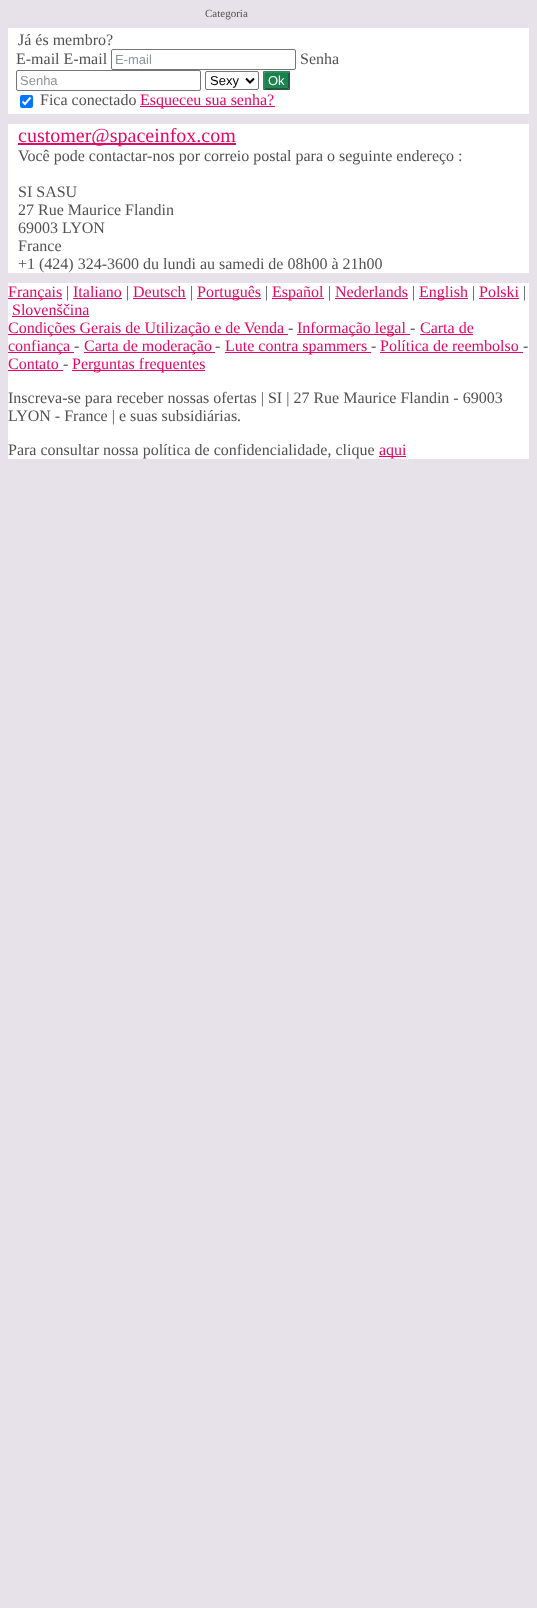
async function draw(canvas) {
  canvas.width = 537
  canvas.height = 1608
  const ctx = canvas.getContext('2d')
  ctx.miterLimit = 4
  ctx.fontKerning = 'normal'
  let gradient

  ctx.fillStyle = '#e7e1e9'
  ctx.fillRect(0, 0, 537, 1608)
  ctx.fillStyle = '#fff'
  ctx.fillRect(8, 28, 521, 86)
  ctx.font = '16px Liberation Serif'
  ctx.fillStyle = '#525252'
  ctx.fillText('E-mail E-mail', 16, 64)
  ctx.font = '11px Liberation Serif'
  ctx.fillText('Categoria', 205, 17)
  ctx.beginPath()
  ctx.roundRect(205.5, 71.5, 53, 18, 1.5)
  ctx.strokeStyle = '#767676'
  ctx.stroke()
  ctx.beginPath()
  ctx.moveTo(246, 78.5)
  ctx.lineTo(250, 82.5)
  ctx.lineTo(254, 78.5)
  ctx.strokeStyle = '#000'
  ctx.lineWidth = 2
  ctx.stroke()
  ctx.font = '13px Liberation Sans'
  ctx.fillStyle = '#000'
  ctx.fillText('Sexy', 210, 85)
  ctx.font = '16px Liberation Serif'
  ctx.fillStyle = '#525252'
  ctx.fillText('Senha', 300, 64)
  ctx.beginPath()
  ctx.roundRect(16.5, 70.5, 184, 20, 1.5)
  ctx.strokeStyle = '#767676'
  ctx.lineWidth = 1
  ctx.stroke()
  ctx.font = '13px Liberation Sans'
  ctx.fillStyle = '#909499'
  ctx.fillText('Senha', 20, 85)
  ctx.beginPath()
  ctx.roundRect(111.5, 49.5, 184, 20, 1.5)
  ctx.stroke()
  ctx.fillText('E-mail', 115, 64)
  gradient = ctx.createLinearGradient(277, 73, 277, 88)
  gradient.addColorStop(0.4, '#19824b')
  gradient.addColorStop(1, '#248552')
  ctx.fillStyle = gradient
  ctx.fillRect(265, 73, 23, 15)
  ctx.fillStyle = '#30895a'
  ctx.beginPath()
  ctx.moveTo(263, 71)
  ctx.lineTo(290, 71)
  ctx.lineTo(288, 73)
  ctx.lineTo(265, 73)
  ctx.closePath()
  ctx.fill()
  ctx.fillStyle = '#205b3c'
  ctx.beginPath()
  ctx.moveTo(290, 71)
  ctx.lineTo(290, 90)
  ctx.lineTo(288, 88)
  ctx.lineTo(288, 73)
  ctx.closePath()
  ctx.fill()
  ctx.beginPath()
  ctx.moveTo(290, 90)
  ctx.lineTo(263, 90)
  ctx.lineTo(265, 88)
  ctx.lineTo(288, 88)
  ctx.closePath()
  ctx.fill()
  ctx.fillStyle = '#30895a'
  ctx.beginPath()
  ctx.moveTo(263, 90)
  ctx.lineTo(263, 71)
  ctx.lineTo(265, 73)
  ctx.lineTo(265, 88)
  ctx.closePath()
  ctx.fill()
  ctx.fillStyle = '#fff'
  ctx.fillText('Ok', 268, 85)
  ctx.font = '16px Liberation Serif'
  ctx.fillStyle = '#525252'
  ctx.fillText('Já és membro?', 18, 45)
  ctx.fillStyle = '#0075ff'
  ctx.beginPath()
  ctx.roundRect(20, 95, 13, 13, 2)
  ctx.fill()
  ctx.beginPath()
  ctx.moveTo(22.5, 101.5)
  ctx.lineTo(25, 104)
  ctx.lineTo(30.5, 97.5)
  ctx.strokeStyle = '#fff'
  ctx.lineWidth = 2.1
  ctx.stroke()
  ctx.fillStyle = '#525252'
  ctx.fillText('Fica conectado', 40, 105)
  ctx.fillStyle = '#e50767'
  ctx.fillRect(140, 106, 135, 1)
  ctx.fillText('Esqueceu sua senha?', 140, 105)
  ctx.fillStyle = '#fff'
  ctx.fillRect(8, 124, 521, 149)
  ctx.fillStyle = '#e50767'
  ctx.fillRect(18, 143, 218, 2)
  ctx.font = '20px Liberation Serif'
  ctx.fillText('customer@spaceinfox.com', 18, 142)
  ctx.font = '16px Liberation Serif'
  ctx.fillStyle = '#525252'
  ctx.fillText('Você pode contactar-nos por correio postal para o seguinte endereço :', 18, 161)
  ctx.fillText('SI SASU', 18, 197)
  ctx.fillText('27 Rue Maurice Flandin', 18, 215)
  ctx.fillText('69003 LYON', 18, 233)
  ctx.fillText('France', 18, 251)
  ctx.fillText('+1 (424) 324-3600 du lundi au samedi de 08h00 à 21h00', 18, 269)
  ctx.fillStyle = '#fff'
  ctx.fillRect(8, 283, 521, 176)
  ctx.fillStyle = '#e50767'
  ctx.fillRect(8, 298, 54, 1)
  ctx.fillText('Français', 8, 297)
  ctx.fillStyle = '#525252'
  ctx.fillText('|', 66, 297)
  ctx.fillStyle = '#e50767'
  ctx.fillText('Italiano', 73, 297)
  ctx.fillRect(73, 298, 49, 1)
  ctx.fillStyle = '#525252'
  ctx.fillText('|', 126, 297)
  ctx.fillStyle = '#e50767'
  ctx.fillText('Deutsch', 133, 297)
  ctx.fillRect(133, 298, 53, 1)
  ctx.fillStyle = '#525252'
  ctx.fillText('|', 190, 297)
  ctx.fillStyle = '#e50767'
  ctx.fillRect(197, 298, 64, 1)
  ctx.fillText('Português', 197, 297)
  ctx.fillStyle = '#525252'
  ctx.fillText('|', 265, 297)
  ctx.fillStyle = '#e50767'
  ctx.fillRect(272, 298, 52, 1)
  ctx.fillText('Español', 272, 297)
  ctx.fillStyle = '#525252'
  ctx.fillText('|', 328, 297)
  ctx.fillStyle = '#e50767'
  ctx.fillText('Nederlands', 335, 297)
  ctx.fillRect(335, 298, 73, 1)
  ctx.fillStyle = '#525252'
  ctx.fillText('|', 412, 297)
  ctx.fillStyle = '#e50767'
  ctx.fillRect(419, 298, 49, 1)
  ctx.fillText('English', 419, 297)
  ctx.fillStyle = '#525252'
  ctx.fillText('|', 472, 297)
  ctx.fillStyle = '#e50767'
  ctx.fillText('Polski', 479, 297)
  ctx.fillRect(479, 298, 40, 1)
  ctx.fillStyle = '#525252'
  ctx.fillText('|', 523, 297)
  ctx.fillStyle = '#e50767'
  ctx.fillText('Slovenščina', 12, 315)
  ctx.fillRect(12, 316, 77, 1)
  ctx.fillRect(8, 334, 280, 1)
  ctx.fillText('Condições Gerais de Utilização e de Venda', 8, 333)
  ctx.fillStyle = '#525252'
  ctx.fillText('-', 288, 333)
  ctx.fillStyle = '#e50767'
  ctx.fillRect(297, 334, 113, 1)
  ctx.fillText('Informação legal', 297, 333)
  ctx.fillStyle = '#525252'
  ctx.fillText('-', 410, 333)
  ctx.fillStyle = '#e50767'
  ctx.fillText('Carta de', 420, 333)
  ctx.fillRect(420, 334, 53, 1)
  ctx.fillRect(8, 352, 66, 1)
  ctx.fillText('confiança', 8, 351)
  ctx.fillStyle = '#525252'
  ctx.fillText('-', 74, 351)
  ctx.fillStyle = '#e50767'
  ctx.fillRect(84, 352, 131, 1)
  ctx.fillText('Carta de moderação', 84, 351)
  ctx.fillStyle = '#525252'
  ctx.fillText('-', 215, 351)
  ctx.fillStyle = '#e50767'
  ctx.fillRect(225, 352, 146, 1)
  ctx.fillText('Lute contra spammers', 225, 351)
  ctx.fillStyle = '#525252'
  ctx.fillText('-', 371, 351)
  ctx.fillStyle = '#e50767'
  ctx.fillText('Política de reembolso', 380, 351)
  ctx.fillRect(380, 352, 143, 1)
  ctx.fillStyle = '#525252'
  ctx.fillText('-', 523, 351)
  ctx.fillStyle = '#e50767'
  ctx.fillText('Contato', 8, 369)
  ctx.fillRect(8, 370, 55, 1)
  ctx.fillStyle = '#525252'
  ctx.fillText('-', 63, 369)
  ctx.fillStyle = '#e50767'
  ctx.fillRect(72, 370, 133, 1)
  ctx.fillText('Perguntas frequentes', 72, 369)
  ctx.fillStyle = '#525252'
  ctx.fillText('Inscreva-se para receber nossas ofertas | SI | 27 Rue Maurice Flandin - 69003', 8, 403)
  ctx.fillText('LYON - France | e suas subsidiárias.', 8, 421)
  ctx.fillText('Para consultar nossa política de confidencialidade, clique', 8, 455)
  ctx.fillStyle = '#e50767'
  ctx.fillRect(379, 456, 27, 1)
  ctx.fillText('aqui', 379, 455)
}

draw(document.querySelector('canvas'))
